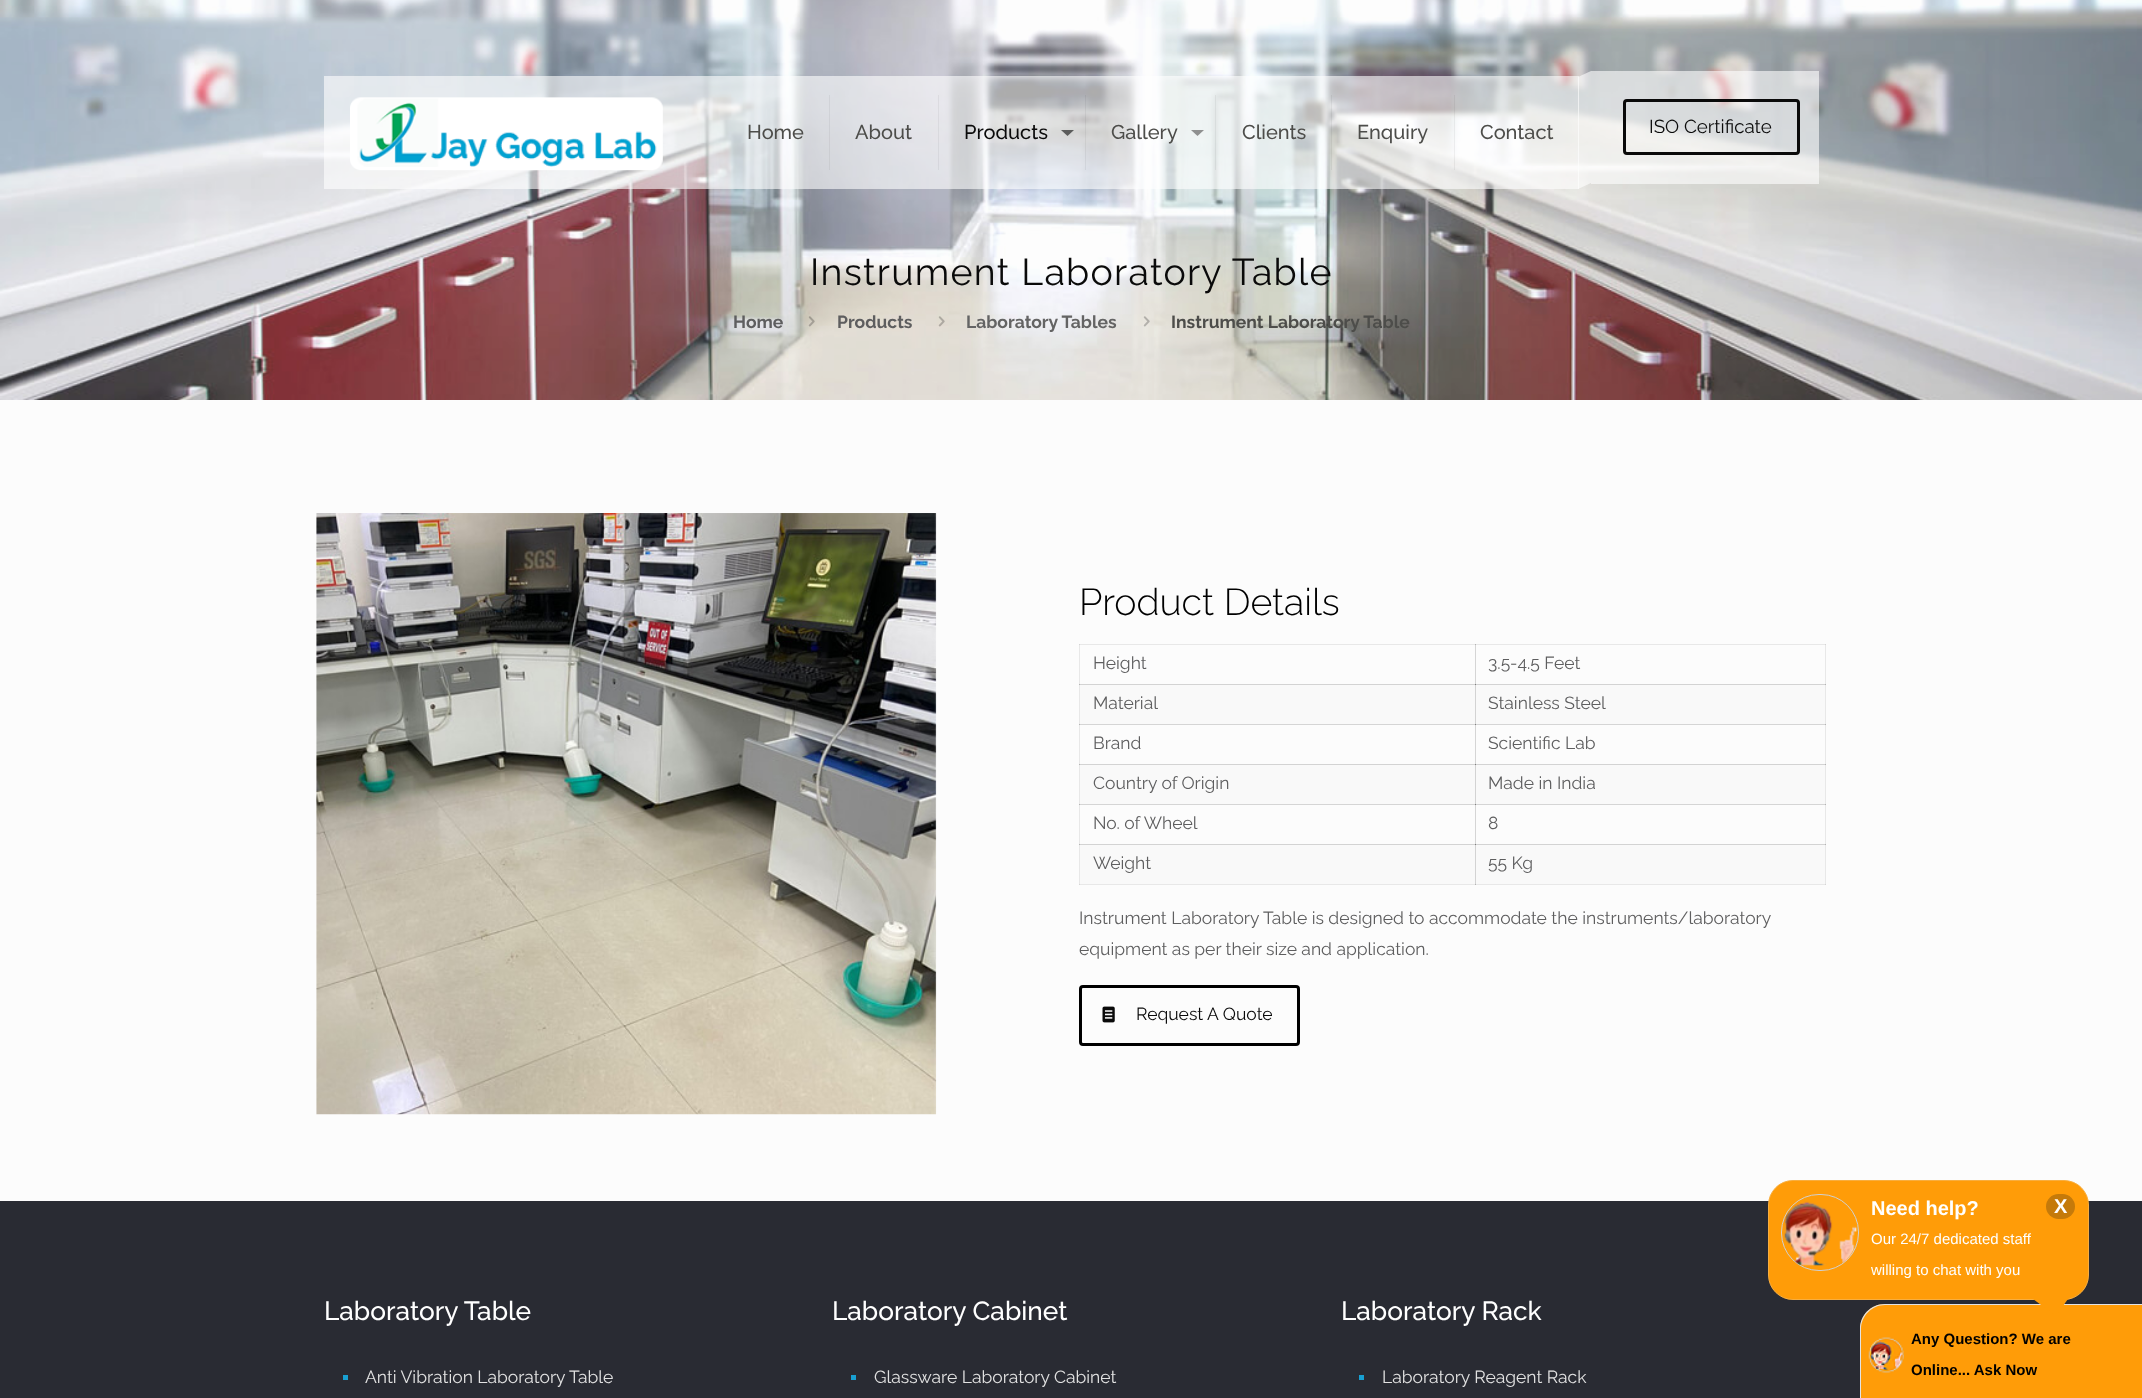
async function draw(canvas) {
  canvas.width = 2142
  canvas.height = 1398
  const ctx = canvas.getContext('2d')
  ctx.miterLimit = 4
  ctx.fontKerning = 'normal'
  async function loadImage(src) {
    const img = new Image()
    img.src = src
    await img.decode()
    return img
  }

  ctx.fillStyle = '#fcfcfc'
  ctx.fillRect(0, 0, 2142, 1398)
  ctx.fillStyle = '#e8e8e8'
  ctx.fillRect(1079, 644, 1, 241)
  ctx.fillRect(1079, 644, 397, 1)
  ctx.fillStyle = '#d5d5d5'
  ctx.fillRect(1079, 644, 1, 1)
  ctx.fillRect(1475, 644, 1, 41)
  ctx.fillStyle = '#e8e8e8'
  ctx.fillRect(1825, 644, 1, 201)
  ctx.fillStyle = '#b4b4b4'
  ctx.fillRect(1079, 684, 1, 1)
  ctx.fillRect(1825, 684, 1, 1)
  ctx.fillStyle = '#d5d5d5'
  ctx.fillRect(1079, 724, 397, 1)
  ctx.fillStyle = '#b4b4b4'
  ctx.fillRect(1079, 724, 1, 1)
  ctx.fillStyle = '#d5d5d5'
  ctx.fillRect(1475, 724, 1, 41)
  ctx.fillStyle = '#b4b4b4'
  ctx.fillRect(1079, 764, 1, 1)
  ctx.fillRect(1825, 764, 1, 1)
  ctx.fillStyle = '#d5d5d5'
  ctx.fillRect(1079, 804, 397, 1)
  ctx.fillStyle = '#b4b4b4'
  ctx.fillRect(1079, 804, 1, 1)
  ctx.fillStyle = '#d5d5d5'
  ctx.fillRect(1475, 804, 1, 41)
  ctx.fillStyle = '#e8e8e8'
  ctx.fillRect(1079, 884, 747, 1)
  ctx.fillStyle = '#d5d5d5'
  ctx.fillRect(1079, 884, 1, 1)
  ctx.fillStyle = '#b4b4b4'
  ctx.fillRect(1079, 844, 1, 1)
  ctx.fillRect(1475, 884, 1, 1)
  ctx.fillStyle = '#e8e8e8'
  ctx.fillRect(1825, 844, 1, 41)
  ctx.fillStyle = '#d5d5d5'
  ctx.fillRect(1825, 884, 1, 1)
  ctx.fillStyle = '#b4b4b4'
  ctx.fillRect(1825, 844, 1, 1)
  ctx.drawImage(await loadImage('image0.png'), 0, 0, 2142, 400)
  ctx.fillStyle = '#ffffff99'
  ctx.fillRect(324, 76, 1255, 113)
  ctx.drawImage(await loadImage('image1.png'), 350, 97, 313, 74)
  ctx.fillStyle = '#0000000d'
  ctx.fillRect(829, 95, 1, 75)
  ctx.font = '500 20px Raleway'
  ctx.fillStyle = '#4d4d4a'
  ctx.fillText('Home', 747, 139)
  ctx.fillStyle = '#0000000d'
  ctx.fillRect(938, 95, 1, 75)
  ctx.fillStyle = '#4d4d4a'
  ctx.fillText('About', 855, 139)
  ctx.fillStyle = '#0000000d'
  ctx.fillRect(1085, 95, 1, 75)
  ctx.fillStyle = '#0a0a0a'
  ctx.fillText('Products', 964, 139)
  ctx.fillStyle = '#0a0a0a99'
  ctx.beginPath()
  ctx.moveTo(1061, 130)
  ctx.lineTo(1074, 130)
  ctx.lineTo(1067.5, 136)
  ctx.closePath()
  ctx.fill()
  ctx.fillStyle = '#0000000d'
  ctx.fillRect(1215, 95, 1, 75)
  ctx.fillStyle = '#4d4d4a'
  ctx.fillText('Gallery', 1111, 139)
  ctx.fillStyle = '#8f9090'
  ctx.beginPath()
  ctx.moveTo(1191, 130)
  ctx.lineTo(1204, 130)
  ctx.lineTo(1197.5, 136)
  ctx.closePath()
  ctx.fill()
  ctx.fillStyle = '#0000000d'
  ctx.fillRect(1331, 95, 1, 75)
  ctx.fillStyle = '#4d4d4a'
  ctx.fillText('Clients', 1242, 139)
  ctx.fillStyle = '#0000000d'
  ctx.fillRect(1454, 95, 1, 75)
  ctx.fillStyle = '#4d4d4a'
  ctx.fillText('Enquiry', 1357, 139)
  ctx.fillText('Contact', 1480, 139)
  ctx.fillStyle = '#ffffff99'
  ctx.fillRect(1591, 71, 228, 113)
  ctx.beginPath()
  ctx.moveTo(1578, 77)
  ctx.lineTo(1591, 71)
  ctx.lineTo(1591, 183)
  ctx.lineTo(1578, 189)
  ctx.closePath()
  ctx.fill()
  ctx.beginPath()
  ctx.roundRect(1624.5, 100.5, 174, 53, 2.5)
  ctx.strokeStyle = '#0a0a0a'
  ctx.lineWidth = 3
  ctx.stroke()
  ctx.font = '18.75px Raleway'
  ctx.fillStyle = '#0a0a0a'
  ctx.fillText('ISO Certificate', 1649, 133)
  ctx.letterSpacing = '1.25px'
  ctx.font = '37.5px Raleway'
  ctx.fillText('Instrument Laboratory Table', 810, 285)
  ctx.letterSpacing = '0px'
  ctx.font = 'bold 17.5px Raleway'
  ctx.fillStyle = '#5e5e5f'
  ctx.fillText('Home', 733, 328)
  ctx.drawImage(await loadImage('image2.png'), 808, 316, 7, 11)
  ctx.fillText('Products', 837, 328)
  ctx.drawImage(await loadImage('image3.png'), 938, 316, 7, 11)
  ctx.fillStyle = '#646464'
  ctx.fillText('Laboratory Tables', 966, 328)
  ctx.drawImage(await loadImage('image4.png'), 1143, 316, 7, 11)
  ctx.fillStyle = '#4d4d4a'
  ctx.fillText('Instrument Laboratory Table', 1171, 328)
  ctx.drawImage(await loadImage('image5.png'), 316, 513, 621, 602)
  ctx.font = '300 37.5px Raleway'
  ctx.fillStyle = '#000'
  ctx.fillText('Product Details', 1079, 615)
  ctx.font = '17.5px Raleway'
  ctx.fillStyle = '#5e5e5f'
  ctx.fillText('Height', 1093, 669)
  ctx.fillStyle = '#e8e8e8'
  ctx.fillRect(1475, 644, 351, 1)
  ctx.fillStyle = '#b4b4b4'
  ctx.fillRect(1475, 644, 1, 1)
  ctx.fillStyle = '#d5d5d5'
  ctx.fillRect(1825, 644, 1, 1)
  ctx.fillStyle = '#5e5e5f'
  ctx.fillText('3.5-4.5 Feet', 1488, 669)
  ctx.fillStyle = '#f9f9f9'
  ctx.fillRect(1080, 685, 395, 39)
  ctx.fillStyle = '#d3d3d3'
  ctx.fillRect(1080, 684, 395, 1)
  ctx.fillStyle = '#5e5e5f'
  ctx.fillText('Material', 1093, 709)
  ctx.fillStyle = '#f9f9f9'
  ctx.fillRect(1476, 685, 349, 39)
  ctx.fillStyle = '#d3d3d3'
  ctx.fillRect(1475, 684, 1, 40)
  ctx.fillRect(1475, 684, 350, 1)
  ctx.fillStyle = '#808080'
  ctx.fillRect(1475, 684, 1, 1)
  ctx.fillStyle = '#5e5e5f'
  ctx.fillText('Stainless Steel', 1488, 709)
  ctx.fillText('Brand', 1093, 749)
  ctx.fillStyle = '#d5d5d5'
  ctx.fillRect(1475, 724, 351, 1)
  ctx.fillStyle = '#828282'
  ctx.fillRect(1475, 724, 1, 1)
  ctx.fillStyle = '#b4b4b4'
  ctx.fillRect(1825, 724, 1, 1)
  ctx.fillStyle = '#5e5e5f'
  ctx.fillText('Scientific Lab', 1488, 749)
  ctx.fillStyle = '#f9f9f9'
  ctx.fillRect(1080, 765, 395, 39)
  ctx.fillStyle = '#d3d3d3'
  ctx.fillRect(1080, 764, 395, 1)
  ctx.fillStyle = '#5e5e5f'
  ctx.fillText('Country of Origin', 1093, 789)
  ctx.fillStyle = '#f9f9f9'
  ctx.fillRect(1476, 765, 349, 39)
  ctx.fillStyle = '#d3d3d3'
  ctx.fillRect(1475, 764, 1, 40)
  ctx.fillRect(1475, 764, 350, 1)
  ctx.fillStyle = '#808080'
  ctx.fillRect(1475, 764, 1, 1)
  ctx.fillStyle = '#5e5e5f'
  ctx.fillText('Made in India', 1488, 789)
  ctx.fillText('No. of Wheel', 1093, 829)
  ctx.fillStyle = '#d5d5d5'
  ctx.fillRect(1475, 804, 351, 1)
  ctx.fillStyle = '#828282'
  ctx.fillRect(1475, 804, 1, 1)
  ctx.fillStyle = '#b4b4b4'
  ctx.fillRect(1825, 804, 1, 1)
  ctx.fillStyle = '#5e5e5f'
  ctx.fillText('8', 1488, 829)
  ctx.fillStyle = '#f9f9f9'
  ctx.fillRect(1080, 845, 395, 39)
  ctx.fillStyle = '#d3d3d3'
  ctx.fillRect(1080, 844, 395, 1)
  ctx.fillStyle = '#5e5e5f'
  ctx.fillText('Weight', 1093, 869)
  ctx.fillStyle = '#f9f9f9'
  ctx.fillRect(1476, 845, 349, 39)
  ctx.fillStyle = '#d3d3d3'
  ctx.fillRect(1475, 844, 1, 40)
  ctx.fillRect(1475, 844, 350, 1)
  ctx.fillStyle = '#808080'
  ctx.fillRect(1475, 844, 1, 1)
  ctx.fillStyle = '#5e5e5f'
  ctx.fillText('55 Kg', 1488, 869)
  ctx.fillText('Instrument Laboratory Table is designed to accommodate the instruments/laboratory', 1079, 924)
  ctx.fillText('equipment as per their size and application.', 1079, 955)
  ctx.beginPath()
  ctx.roundRect(1080.5, 986.5, 218, 58, 2.5)
  ctx.strokeStyle = '#000'
  ctx.stroke()
  ctx.drawImage(await loadImage('image6.png'), 1102, 1006, 13, 17)
  ctx.fillStyle = '#0a0a0a'
  ctx.fillText('Request A Quote', 1136, 1020)
  ctx.fillStyle = '#292b33'
  ctx.fillRect(0, 1201, 2142, 197)
  ctx.font = '500 26.25px Raleway'
  ctx.fillStyle = '#fff'
  ctx.fillText('Laboratory Table', 324, 1320)
  ctx.fillStyle = '#18a0d2'
  ctx.fillRect(343, 1375, 5, 5)
  ctx.font = '17.5px Raleway'
  ctx.fillStyle = '#e2e2e2'
  ctx.fillText('Anti Vibration Laboratory Table', 365, 1383)
  ctx.font = '500 26.25px Raleway'
  ctx.fillStyle = '#fff'
  ctx.fillText('Laboratory Cabinet', 832, 1320)
  ctx.fillStyle = '#18a0d2'
  ctx.fillRect(851, 1375, 5, 5)
  ctx.font = '17.5px Raleway'
  ctx.fillStyle = '#e2e2e2'
  ctx.fillText('Glassware Laboratory Cabinet', 874, 1383)
  ctx.font = '500 26.25px Raleway'
  ctx.fillStyle = '#fff'
  ctx.fillText('Laboratory Rack', 1341, 1320)
  ctx.fillStyle = '#18a0d2'
  ctx.fillRect(1359, 1375, 5, 5)
  ctx.font = '17.5px Raleway'
  ctx.fillStyle = '#e2e2e2'
  ctx.fillText('Laboratory Reagent Rack', 1382, 1383)
  ctx.fillStyle = '#ff9c08'
  ctx.beginPath()
  ctx.moveTo(1885, 1304)
  ctx.lineTo(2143, 1304)
  ctx.lineTo(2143, 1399)
  ctx.lineTo(1860, 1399)
  ctx.lineTo(1860, 1329)
  ctx.bezierCurveTo(1860, 1315, 1871, 1304, 1885, 1304)
  ctx.closePath()
  ctx.fill()
  ctx.fillStyle = '#e3e3e3'
  ctx.beginPath()
  ctx.moveTo(1885, 1304)
  ctx.lineTo(2142, 1304)
  ctx.lineTo(2142, 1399)
  ctx.lineTo(1860, 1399)
  ctx.lineTo(1860, 1329)
  ctx.bezierCurveTo(1860, 1315, 1871, 1304, 1885, 1304)
  ctx.closePath()
  ctx.moveTo(1885, 1305)
  ctx.lineTo(2142, 1305)
  ctx.lineTo(2142, 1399)
  ctx.lineTo(1861, 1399)
  ctx.lineTo(1861, 1329)
  ctx.bezierCurveTo(1861, 1316, 1872, 1305, 1885, 1305)
  ctx.closePath()
  ctx.fill('evenodd')
  ctx.fillStyle = '#ff9c08'
  ctx.beginPath()
  ctx.roundRect(1768.5, 1180.5, 320, 119, 24.5)
  ctx.fill()
  ctx.strokeStyle = '#f8ae3f'
  ctx.lineWidth = 1
  ctx.stroke()
  ctx.beginPath()
  ctx.roundRect(1781.5, 1194.5, 77, 76, 37.5)
  ctx.strokeStyle = '#d0d0d0'
  ctx.stroke()
  ctx.drawImage(await loadImage('image7.png'), 1783, 1201, 75, 65)
  ctx.font = 'bold 20px Liberation Sans'
  ctx.fillStyle = '#fff'
  ctx.fillText('Need help?', 1871, 1215)
  ctx.fillStyle = '#c57a0a'
  ctx.beginPath()
  ctx.roundRect(2046, 1194, 29, 25, 12.5)
  ctx.fill()
  ctx.fillStyle = '#fff'
  ctx.fillText('X', 2054, 1213)
  ctx.font = '15px Liberation Sans'
  ctx.fillText('Our 24/7 dedicated staff', 1871, 1244)
  ctx.fillText('willing to chat with you', 1871, 1275)
  ctx.fillStyle = '#ff9c08'
  ctx.beginPath()
  ctx.moveTo(2031, 1297.5)
  ctx.lineTo(2069, 1297.5)
  ctx.lineTo(2056, 1316)
  ctx.closePath()
  ctx.fill()
  ctx.drawImage(await loadImage('image8.png'), 1868, 1337, 36, 36)
  ctx.font = 'bold 15px Liberation Sans'
  ctx.fillStyle = '#000'
  ctx.fillText('Any Question? We are', 1911, 1344)
  ctx.fillText('Online... Ask Now', 1911, 1375)
}

draw(document.querySelector('canvas'))
